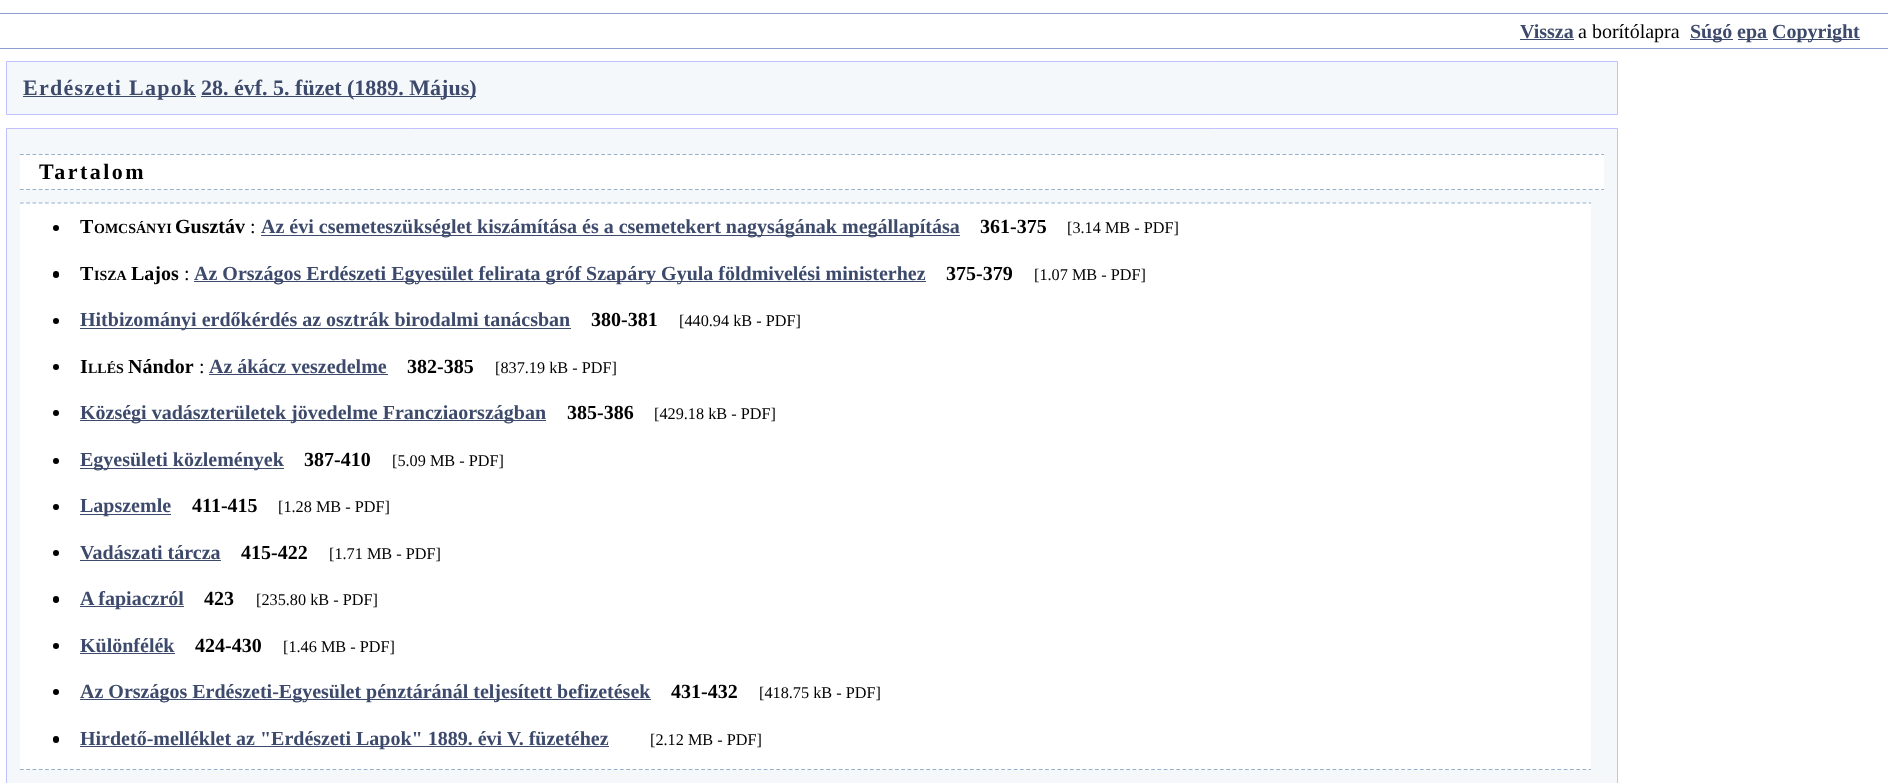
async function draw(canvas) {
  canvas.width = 1888
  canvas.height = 783
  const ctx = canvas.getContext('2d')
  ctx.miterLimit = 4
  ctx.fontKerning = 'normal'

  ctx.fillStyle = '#fff'
  ctx.fillRect(0, 0, 1888, 783)
  ctx.fillStyle = '#8f9dd1'
  ctx.fillRect(0, 13, 1888, 1)
  ctx.fillRect(0, 48, 1888, 1)
  ctx.font = 'bold 20px Liberation Serif'
  ctx.fillStyle = '#3d4a6b'
  ctx.fillText('Vissza', 1520, 38)
  ctx.fillRect(1520, 39, 54, 1)
  ctx.font = '20px Liberation Serif'
  ctx.fillStyle = '#000'
  ctx.fillText('a borítólapra', 1578, 38)
  ctx.fillStyle = '#3d4a6b'
  ctx.fillRect(1690, 39, 43, 1)
  ctx.font = 'bold 20px Liberation Serif'
  ctx.fillText('Súgó', 1690, 38)
  ctx.fillRect(1738, 39, 30, 1)
  ctx.fillText('epa', 1737, 38)
  ctx.fillRect(1773, 39, 87, 1)
  ctx.fillText('Copyright', 1772, 38)
  ctx.fillStyle = '#f5f8fb'
  ctx.beginPath()
  ctx.rect(6.5, 61.5, 1611, 53)
  ctx.fill()
  ctx.strokeStyle = '#c0c0ff'
  ctx.stroke()
  ctx.fillStyle = '#3d4a6b'
  ctx.fillRect(23, 96, 173, 1)
  ctx.letterSpacing = '1.25px'
  ctx.font = 'bold 22px Liberation Serif'
  ctx.fillText('Erdészeti Lapok', 23, 95)
  ctx.fillRect(201, 96, 275, 1)
  ctx.letterSpacing = '0px'
  ctx.fillText('28. évf. 5. füzet (1889. Május)', 201, 95)
  ctx.fillStyle = '#f5f8fb'
  ctx.beginPath()
  ctx.rect(6.5, 128.5, 1611, 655)
  ctx.fill()
  ctx.stroke()
  ctx.fillStyle = '#fff'
  ctx.fillRect(20, 154, 1584, 36)
  ctx.beginPath()
  ctx.moveTo(20, 154.5)
  ctx.lineTo(1604, 154.5)
  ctx.strokeStyle = '#94b0cc'
  ctx.lineWidth = 1.2
  ctx.setLineDash([3.75, 2.5])
  ctx.stroke()
  ctx.beginPath()
  ctx.moveTo(20, 189.5)
  ctx.lineTo(1604, 189.5)
  ctx.stroke()
  ctx.letterSpacing = '2.5px'
  ctx.fillStyle = '#000'
  ctx.fillText('Tartalom', 39, 179)
  ctx.fillStyle = '#fff'
  ctx.fillRect(20, 203, 1571, 567)
  ctx.beginPath()
  ctx.moveTo(20, 203)
  ctx.lineTo(1591, 203)
  ctx.stroke()
  ctx.beginPath()
  ctx.moveTo(20, 769.5)
  ctx.lineTo(1591, 769.5)
  ctx.stroke()
  ctx.fillStyle = '#000'
  ctx.beginPath()
  ctx.arc(56, 228, 3, 0, 2 * Math.PI)
  ctx.fill()
  ctx.letterSpacing = '0px'
  ctx.font = 'bold 20px Liberation Serif'
  ctx.fillText('T', 80, 233)
  ctx.font = 'bold 14px Liberation Serif'
  ctx.fillText('OMCSÁNYI', 94, 233)
  ctx.font = 'bold 20px Liberation Serif'
  ctx.fillText('Gusztáv', 175, 233)
  ctx.font = '20px Liberation Serif'
  ctx.fillText(':', 250, 233)
  ctx.fillStyle = '#3d4a6b'
  ctx.fillRect(261, 235, 699, 1)
  ctx.font = 'bold 20px Liberation Serif'
  ctx.fillText('Az évi csemeteszükséglet kiszámítása és a csemetekert nagyságának megállapítása', 261, 233)
  ctx.fillStyle = '#000'
  ctx.fillText('361-375', 980, 233)
  ctx.font = '16.25px Liberation Serif'
  ctx.fillText('[3.14 MB - PDF]', 1067, 233)
  ctx.beginPath()
  ctx.roundRect(53, 271, 6, 7, 3)
  ctx.fill()
  ctx.font = 'bold 20px Liberation Serif'
  ctx.fillText('T', 80, 280)
  ctx.font = 'bold 14px Liberation Serif'
  ctx.fillText('ISZA', 94, 280)
  ctx.font = 'bold 20px Liberation Serif'
  ctx.fillText('Lajos', 131, 280)
  ctx.font = '20px Liberation Serif'
  ctx.fillText(':', 184, 280)
  ctx.fillStyle = '#3d4a6b'
  ctx.fillRect(194, 281, 732, 1)
  ctx.font = 'bold 20px Liberation Serif'
  ctx.fillText('Az Országos Erdészeti Egyesület felirata gróf Szapáry Gyula földmivelési ministerhez', 194, 280)
  ctx.fillStyle = '#000'
  ctx.fillText('375-379', 946, 280)
  ctx.font = '16.25px Liberation Serif'
  ctx.fillText('[1.07 MB - PDF]', 1034, 280)
  ctx.beginPath()
  ctx.arc(56, 321, 3, 0, 2 * Math.PI)
  ctx.fill()
  ctx.fillStyle = '#3d4a6b'
  ctx.fillRect(80, 328, 491, 1)
  ctx.font = 'bold 20px Liberation Serif'
  ctx.fillText('Hitbizományi erdőkérdés az osztrák birodalmi tanácsban', 80, 326)
  ctx.fillStyle = '#000'
  ctx.fillText('380-381', 591, 326)
  ctx.font = '16.25px Liberation Serif'
  ctx.fillText('[440.94 kB - PDF]', 679, 326)
  ctx.beginPath()
  ctx.arc(56, 367, 3, 0, 2 * Math.PI)
  ctx.fill()
  ctx.font = 'bold 20px Liberation Serif'
  ctx.fillText('I', 80, 373)
  ctx.font = 'bold 14px Liberation Serif'
  ctx.fillText('LLÉS', 88, 373)
  ctx.font = 'bold 20px Liberation Serif'
  ctx.fillText('Nándor', 128, 373)
  ctx.font = '20px Liberation Serif'
  ctx.fillText(':', 199, 373)
  ctx.font = 'bold 20px Liberation Serif'
  ctx.fillStyle = '#3d4a6b'
  ctx.fillText('Az ákácz veszedelme', 209, 373)
  ctx.fillRect(209, 374, 179, 1)
  ctx.fillStyle = '#000'
  ctx.fillText('382-385', 407, 373)
  ctx.font = '16.25px Liberation Serif'
  ctx.fillText('[837.19 kB - PDF]', 495, 373)
  ctx.beginPath()
  ctx.arc(56, 413, 3, 0, 2 * Math.PI)
  ctx.fill()
  ctx.fillStyle = '#3d4a6b'
  ctx.fillRect(80, 420, 466, 1)
  ctx.font = 'bold 20px Liberation Serif'
  ctx.fillText('Községi vadászterületek jövedelme Francziaországban', 80, 419)
  ctx.fillStyle = '#000'
  ctx.fillText('385-386', 567, 419)
  ctx.font = '16.25px Liberation Serif'
  ctx.fillText('[429.18 kB - PDF]', 654, 419)
  ctx.beginPath()
  ctx.arc(56, 461, 3, 0, 2 * Math.PI)
  ctx.fill()
  ctx.fillStyle = '#3d4a6b'
  ctx.fillRect(80, 468, 204, 1)
  ctx.font = 'bold 20px Liberation Serif'
  ctx.fillText('Egyesületi közlemények', 80, 466)
  ctx.fillStyle = '#000'
  ctx.fillText('387-410', 304, 466)
  ctx.font = '16.25px Liberation Serif'
  ctx.fillText('[5.09 MB - PDF]', 392, 466)
  ctx.beginPath()
  ctx.arc(56, 507, 3, 0, 2 * Math.PI)
  ctx.fill()
  ctx.fillStyle = '#3d4a6b'
  ctx.fillRect(80, 514, 91, 1)
  ctx.font = 'bold 20px Liberation Serif'
  ctx.fillText('Lapszemle', 80, 512)
  ctx.fillStyle = '#000'
  ctx.fillText('411-415', 192, 512)
  ctx.font = '16.25px Liberation Serif'
  ctx.fillText('[1.28 MB - PDF]', 278, 512)
  ctx.beginPath()
  ctx.arc(56, 553, 3, 0, 2 * Math.PI)
  ctx.fill()
  ctx.font = 'bold 20px Liberation Serif'
  ctx.fillStyle = '#3d4a6b'
  ctx.fillText('Vadászati tárcza', 80, 559)
  ctx.fillRect(80, 560, 141, 1)
  ctx.fillStyle = '#000'
  ctx.fillText('415-422', 241, 559)
  ctx.font = '16.25px Liberation Serif'
  ctx.fillText('[1.71 MB - PDF]', 329, 559)
  ctx.beginPath()
  ctx.roundRect(53, 596, 6, 7, 3)
  ctx.fill()
  ctx.fillStyle = '#3d4a6b'
  ctx.fillRect(80, 606, 104, 1)
  ctx.font = 'bold 20px Liberation Serif'
  ctx.fillText('A fapiaczról', 80, 605)
  ctx.fillStyle = '#000'
  ctx.fillText('423', 204, 605)
  ctx.font = '16.25px Liberation Serif'
  ctx.fillText('[235.80 kB - PDF]', 256, 605)
  ctx.beginPath()
  ctx.arc(56, 646, 3, 0, 2 * Math.PI)
  ctx.fill()
  ctx.font = 'bold 20px Liberation Serif'
  ctx.fillStyle = '#3d4a6b'
  ctx.fillText('Különfélék', 80, 652)
  ctx.fillRect(80, 653, 95, 1)
  ctx.fillStyle = '#000'
  ctx.fillText('424-430', 195, 652)
  ctx.font = '16.25px Liberation Serif'
  ctx.fillText('[1.46 MB - PDF]', 283, 652)
  ctx.beginPath()
  ctx.arc(56, 692, 3, 0, 2 * Math.PI)
  ctx.fill()
  ctx.fillStyle = '#3d4a6b'
  ctx.fillRect(80, 699, 571, 1)
  ctx.font = 'bold 20px Liberation Serif'
  ctx.fillText('Az Országos Erdészeti-Egyesület pénztáránál teljesített befizetések', 80, 698)
  ctx.fillStyle = '#000'
  ctx.fillText('431-432', 671, 698)
  ctx.font = '16.25px Liberation Serif'
  ctx.fillText('[418.75 kB - PDF]', 759, 698)
  ctx.beginPath()
  ctx.roundRect(53, 736, 6, 7, 3)
  ctx.fill()
  ctx.fillStyle = '#3d4a6b'
  ctx.fillRect(80, 746, 529, 1)
  ctx.font = 'bold 20px Liberation Serif'
  ctx.fillText('Hirdető-melléklet az "Erdészeti Lapok" 1889. évi V. füzetéhez', 80, 745)
  ctx.font = '16.25px Liberation Serif'
  ctx.fillStyle = '#000'
  ctx.fillText('[2.12 MB - PDF]', 650, 745)
}

draw(document.querySelector('canvas'))
